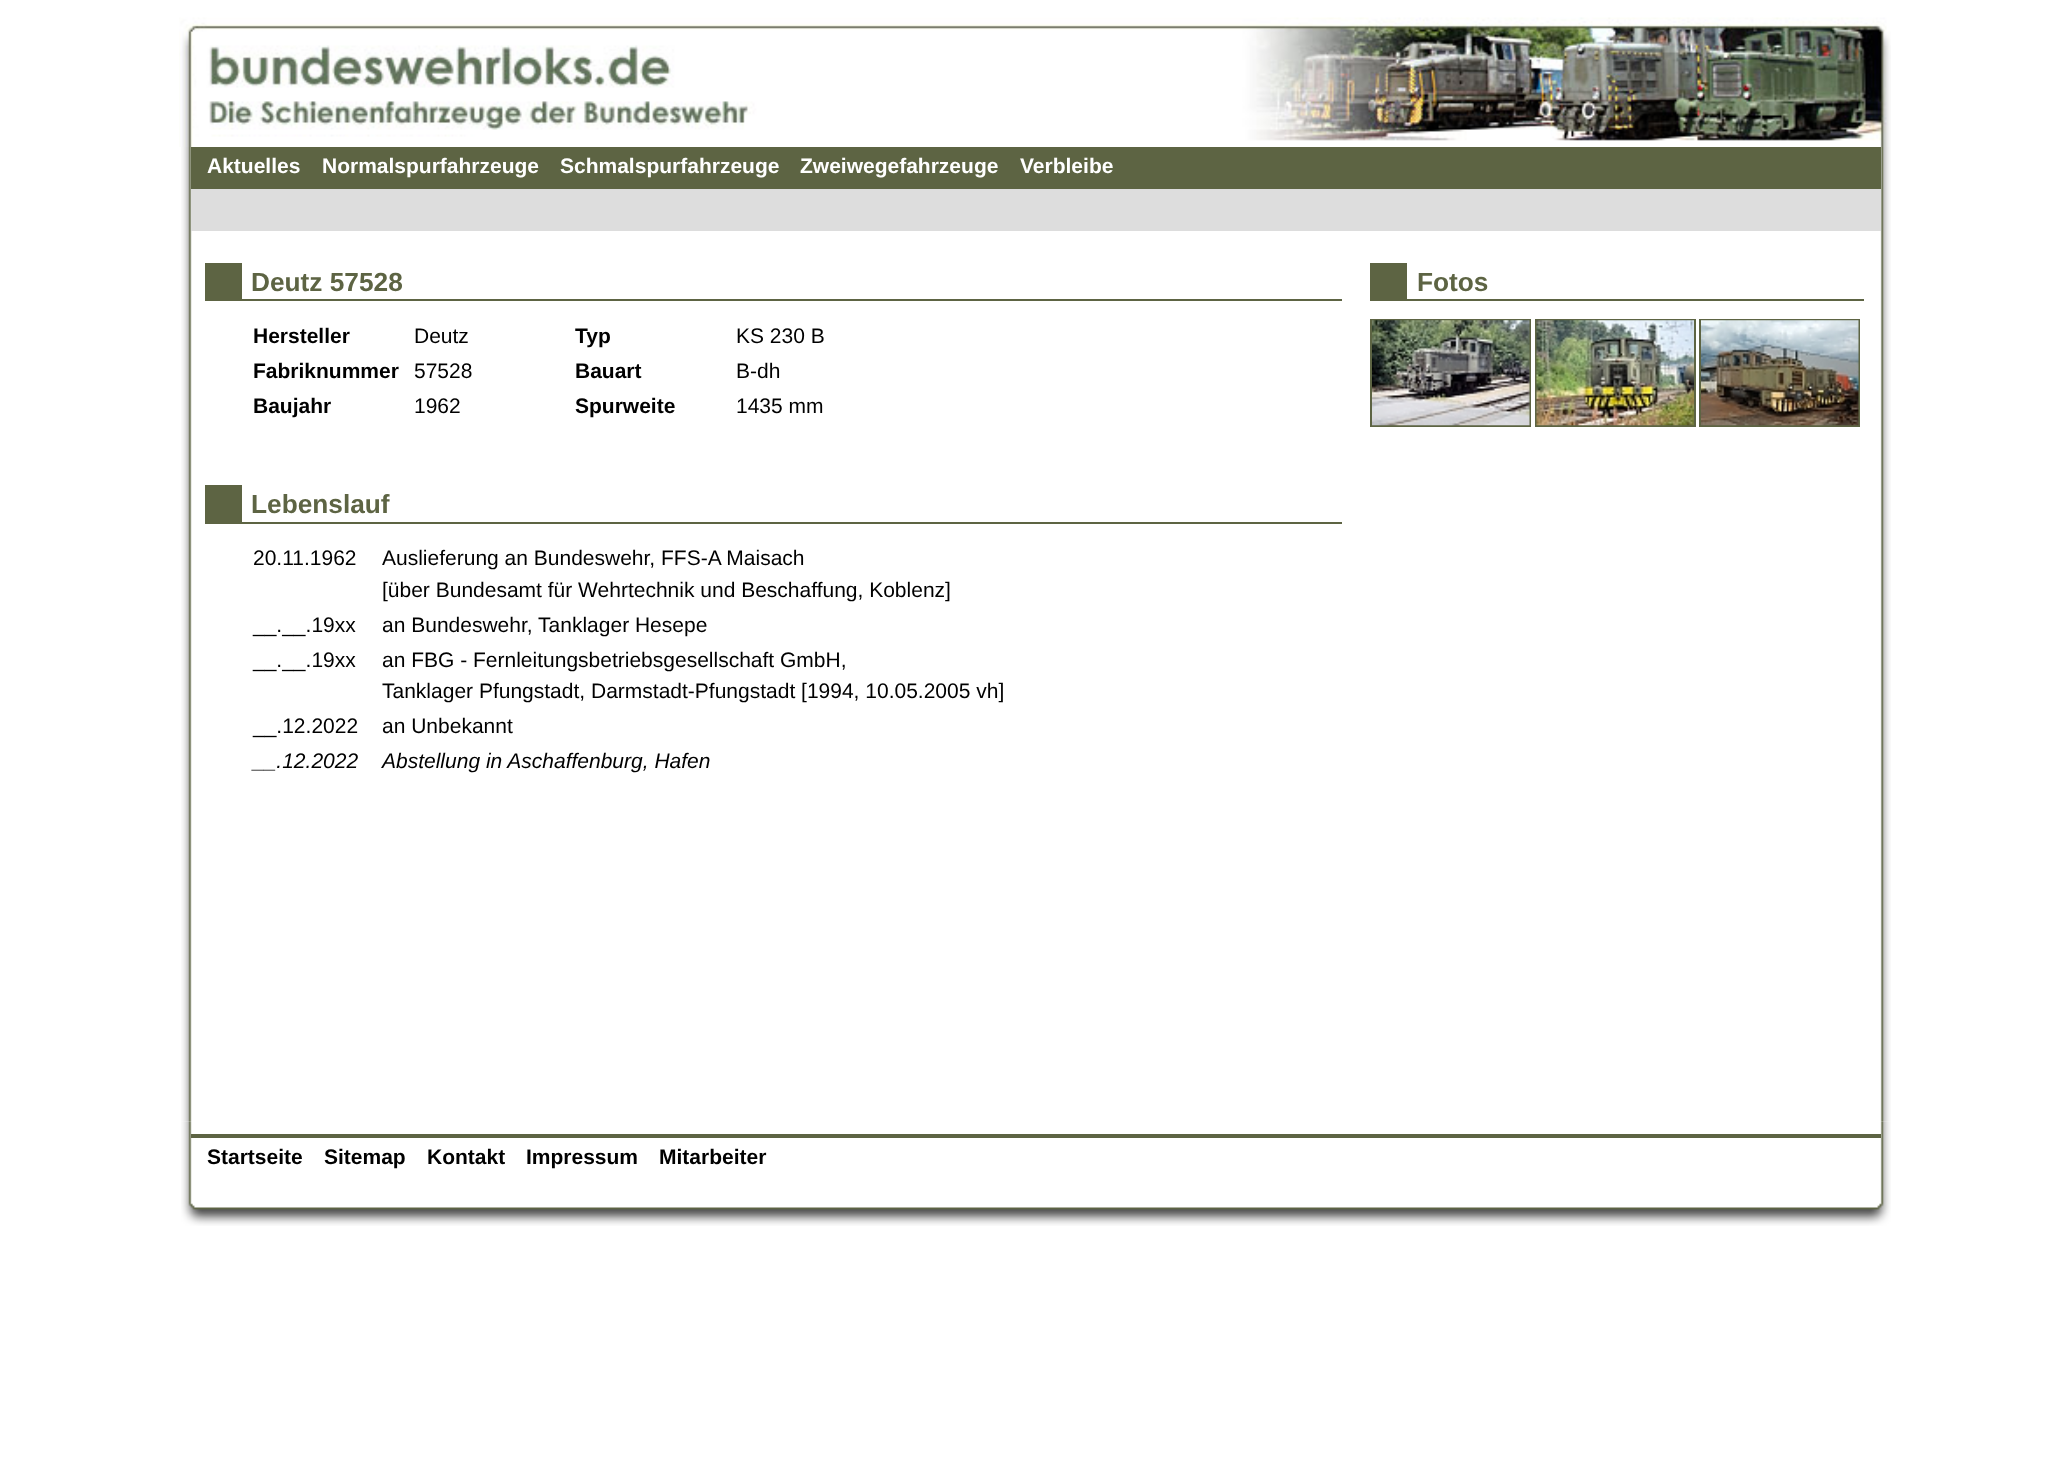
async function draw(canvas) {
  canvas.width = 2069
  canvas.height = 1471
  const ctx = canvas.getContext('2d')
  ctx.miterLimit = 4
  ctx.fontKerning = 'normal'
  async function loadImage(src) {
    const img = new Image()
    img.src = src
    await img.decode()
    return img
  }

  ctx.fillStyle = '#fff'
  ctx.fillRect(0, 0, 2069, 1471)
  ctx.drawImage(await loadImage('image0.png'), 179, 17, 1712, 130)
  ctx.drawImage(await loadImage('image5.png'), 181, 1121, 1710, 105)
  ctx.drawImage(await loadImage('image1.png'), 181, 147, 1710, 975)
  ctx.fillStyle = '#5d6443'
  ctx.fillRect(191, 147, 1690, 42)
  ctx.font = 'bold 21px Liberation Sans'
  ctx.fillStyle = '#fff'
  ctx.fillText('Aktuelles', 207, 173)
  ctx.fillText('Normalspurfahrzeuge', 322, 173)
  ctx.fillText('Schmalspurfahrzeuge', 560, 173)
  ctx.fillText('Zweiwegefahrzeuge', 800, 173)
  ctx.fillText('Verbleibe', 1020, 173)
  ctx.fillStyle = '#ddd'
  ctx.fillRect(191, 189, 1690, 42)
  ctx.fillStyle = '#5d6443'
  ctx.fillRect(242, 299, 1100, 2)
  ctx.fillRect(205, 263, 37, 38)
  ctx.font = 'bold 26.25px Liberation Sans'
  ctx.fillText('Deutz 57528', 251, 291)
  ctx.font = 'bold 21px Liberation Sans'
  ctx.fillStyle = '#000'
  ctx.fillText('Hersteller', 253, 343)
  ctx.font = '21px Liberation Sans'
  ctx.fillText('Deutz', 414, 343)
  ctx.font = 'bold 21px Liberation Sans'
  ctx.fillText('Typ', 575, 343)
  ctx.font = '21px Liberation Sans'
  ctx.fillText('KS 230 B', 736, 343)
  ctx.font = 'bold 21px Liberation Sans'
  ctx.fillText('Fabriknummer', 253, 378)
  ctx.font = '21px Liberation Sans'
  ctx.fillText('57528', 414, 378)
  ctx.font = 'bold 21px Liberation Sans'
  ctx.fillText('Bauart', 575, 378)
  ctx.font = '21px Liberation Sans'
  ctx.fillText('B-dh', 736, 378)
  ctx.font = 'bold 21px Liberation Sans'
  ctx.fillText('Baujahr', 253, 413)
  ctx.font = '21px Liberation Sans'
  ctx.fillText('1962', 414, 413)
  ctx.font = 'bold 21px Liberation Sans'
  ctx.fillText('Spurweite', 575, 413)
  ctx.font = '21px Liberation Sans'
  ctx.fillText('1435 mm', 736, 413)
  ctx.fillStyle = '#5d6443'
  ctx.fillRect(205, 522, 1137, 2)
  ctx.fillRect(205, 485, 37, 37)
  ctx.font = 'bold 26.25px Liberation Sans'
  ctx.fillText('Lebenslauf', 251, 513)
  ctx.font = '21px Liberation Sans'
  ctx.fillStyle = '#000'
  ctx.fillText('20.11.1962', 253, 565)
  ctx.fillText('Auslieferung an Bundeswehr, FFS-A Maisach', 382, 565)
  ctx.fillText('[über Bundesamt für Wehrtechnik und Beschaffung, Koblenz]', 382, 597)
  ctx.fillText('__.__.19xx', 253, 632)
  ctx.fillText('an Bundeswehr, Tanklager Hesepe', 382, 632)
  ctx.fillText('__.__.19xx', 253, 667)
  ctx.fillText('an FBG - Fernleitungsbetriebsgesellschaft GmbH,', 382, 667)
  ctx.fillText('Tanklager Pfungstadt, Darmstadt-Pfungstadt [1994, 10.05.2005 vh]', 382, 698)
  ctx.fillText('__.12.2022', 253, 733)
  ctx.fillText('an Unbekannt', 382, 733)
  ctx.font = 'italic 21px Liberation Sans'
  ctx.fillText('__.12.2022', 253, 768)
  ctx.fillText('Abstellung in Aschaffenburg, Hafen', 382, 768)
  ctx.fillStyle = '#5d6443'
  ctx.fillRect(1407, 299, 457, 2)
  ctx.fillRect(1370, 263, 37, 38)
  ctx.font = 'bold 26.25px Liberation Sans'
  ctx.fillText('Fotos', 1417, 291)
  ctx.strokeStyle = '#5d6443'
  ctx.lineWidth = 2
  ctx.strokeRect(1371, 320, 159, 106)
  ctx.drawImage(await loadImage('image2.png'), 1372, 320, 158, 106)
  ctx.strokeRect(1536, 320, 159, 106)
  ctx.drawImage(await loadImage('image3.png'), 1536, 320, 158, 106)
  ctx.strokeRect(1700, 320, 159, 106)
  ctx.drawImage(await loadImage('image4.png'), 1701, 320, 158, 106)
  ctx.fillRect(191, 1134, 1690, 4)
  ctx.font = 'bold 21px Liberation Sans'
  ctx.fillStyle = '#000'
  ctx.fillText('Startseite', 207, 1164)
  ctx.fillText('Sitemap', 324, 1164)
  ctx.fillText('Kontakt', 427, 1164)
  ctx.fillText('Impressum', 526, 1164)
  ctx.fillText('Mitarbeiter', 659, 1164)
}

draw(document.querySelector('canvas'))
